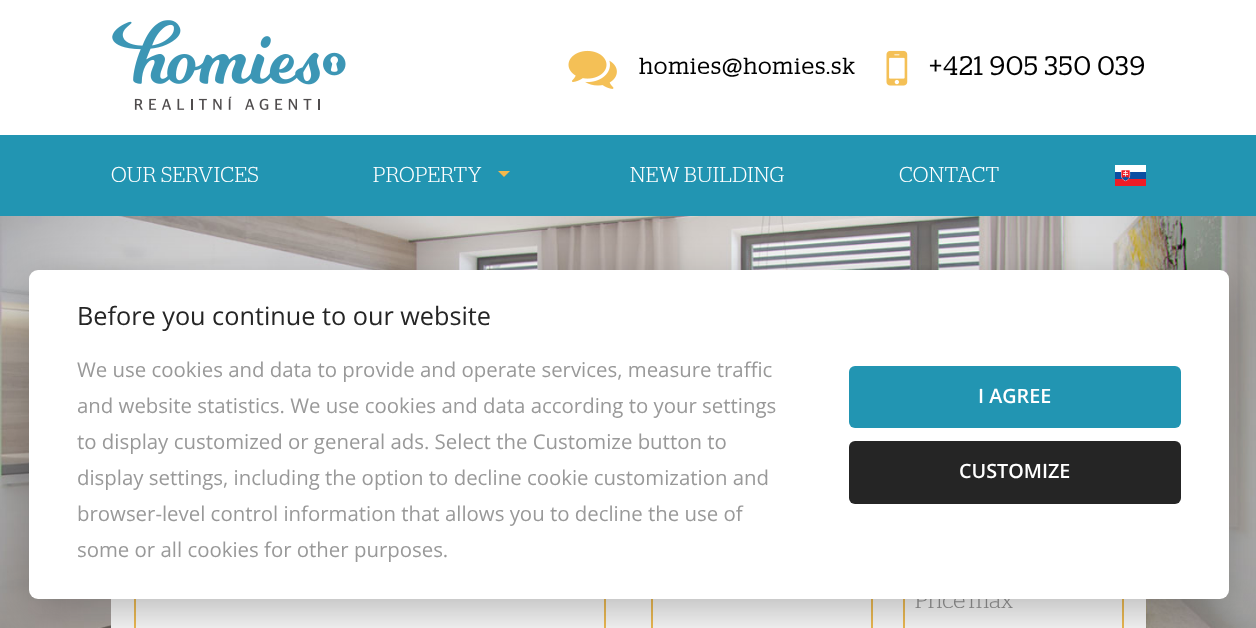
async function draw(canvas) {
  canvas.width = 1256
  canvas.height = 628
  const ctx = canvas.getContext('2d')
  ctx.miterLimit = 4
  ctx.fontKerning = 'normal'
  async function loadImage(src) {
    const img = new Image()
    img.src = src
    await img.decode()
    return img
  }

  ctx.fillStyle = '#fff'
  ctx.fillRect(0, 0, 1256, 628)
  ctx.drawImage(await loadImage('image0.png'), 112, 20, 234, 90)
  ctx.drawImage(await loadImage('image1.png'), 568, 50, 49, 39)
  ctx.letterSpacing = '1.5px'
  ctx.font = 'bold 22.5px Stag'
  ctx.fillStyle = '#000'
  ctx.fillText('homies@homies.sk', 639, 74)
  ctx.drawImage(await loadImage('image2.png'), 886, 50, 22, 36)
  ctx.font = 'bold 25.9px Stag'
  ctx.fillText('+421 905 350 039', 929, 75)
  ctx.fillStyle = '#2295b2'
  ctx.fillRect(0, 135, 1256, 81)
  ctx.letterSpacing = '0.5px'
  ctx.font = '300 21.5px Stag'
  ctx.fillStyle = '#fff'
  ctx.fillText('OUR SERVICES', 111, 182)
  ctx.fillText('PROPERTY', 373, 182)
  ctx.fillStyle = '#f3b84c'
  ctx.beginPath()
  ctx.moveTo(498, 171)
  ctx.lineTo(510, 171)
  ctx.lineTo(504, 177)
  ctx.closePath()
  ctx.fill()
  ctx.fillStyle = '#fff'
  ctx.fillText('NEW BUILDING', 630, 182)
  ctx.fillText('CONTACT', 899, 182)
  ctx.drawImage(await loadImage('image3.png'), 1115, 165, 31, 21)
  ctx.drawImage(await loadImage('image4.png'), 0, 216, 1256, 412)
  ctx.fillRect(111, 599, 1035, 29)
  ctx.strokeStyle = '#f4c056'
  ctx.lineWidth = 2
  ctx.strokeRect(135, 574, 470, 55)
  ctx.strokeRect(652, 574, 220, 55)
  ctx.strokeRect(904, 574, 219, 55)
  ctx.letterSpacing = '0px'
  ctx.font = '300 22.5px Stag'
  ctx.fillStyle = '#999'
  ctx.fillText('Price max', 915, 608)
  ctx.fillStyle = '#02020347'
  ctx.filter = 'blur(22.5px)'
  ctx.beginPath()
  ctx.roundRect(29, 285, 1200, 329, 9)
  ctx.fill()
  ctx.filter = 'none'
  ctx.fillStyle = '#fff'
  ctx.beginPath()
  ctx.roundRect(29, 270, 1200, 329, 9)
  ctx.fill()
  ctx.font = '25.25px Open Sans'
  ctx.fillStyle = '#252525'
  ctx.fillText('Before you continue to our website', 77, 325)
  ctx.font = '20.4px Open Sans'
  ctx.fillStyle = '#999'
  ctx.fillText('We use cookies and data to provide and operate services, measure traffic', 77, 377)
  ctx.fillText('and website statistics. We use cookies and data according to your settings', 77, 413)
  ctx.fillText('to display customized or general ads. Select the Customize button to', 77, 449)
  ctx.fillText('display settings, including the option to decline cookie customization and', 77, 485)
  ctx.fillText('browser-level control information that allows you to decline the use of', 77, 521)
  ctx.fillText('some or all cookies for other purposes.', 77, 557)
  ctx.fillStyle = '#2295b2'
  ctx.beginPath()
  ctx.roundRect(849, 366, 332, 62, 6)
  ctx.fill()
  ctx.font = '600 19.75px Open Sans'
  ctx.fillStyle = '#fff'
  ctx.fillText('I AGREE', 978, 403)
  ctx.fillStyle = '#252525'
  ctx.beginPath()
  ctx.roundRect(849, 441, 332, 63, 6)
  ctx.fill()
  ctx.fillStyle = '#fff'
  ctx.fillText('CUSTOMIZE', 959, 478)
}

draw(document.querySelector('canvas'))
